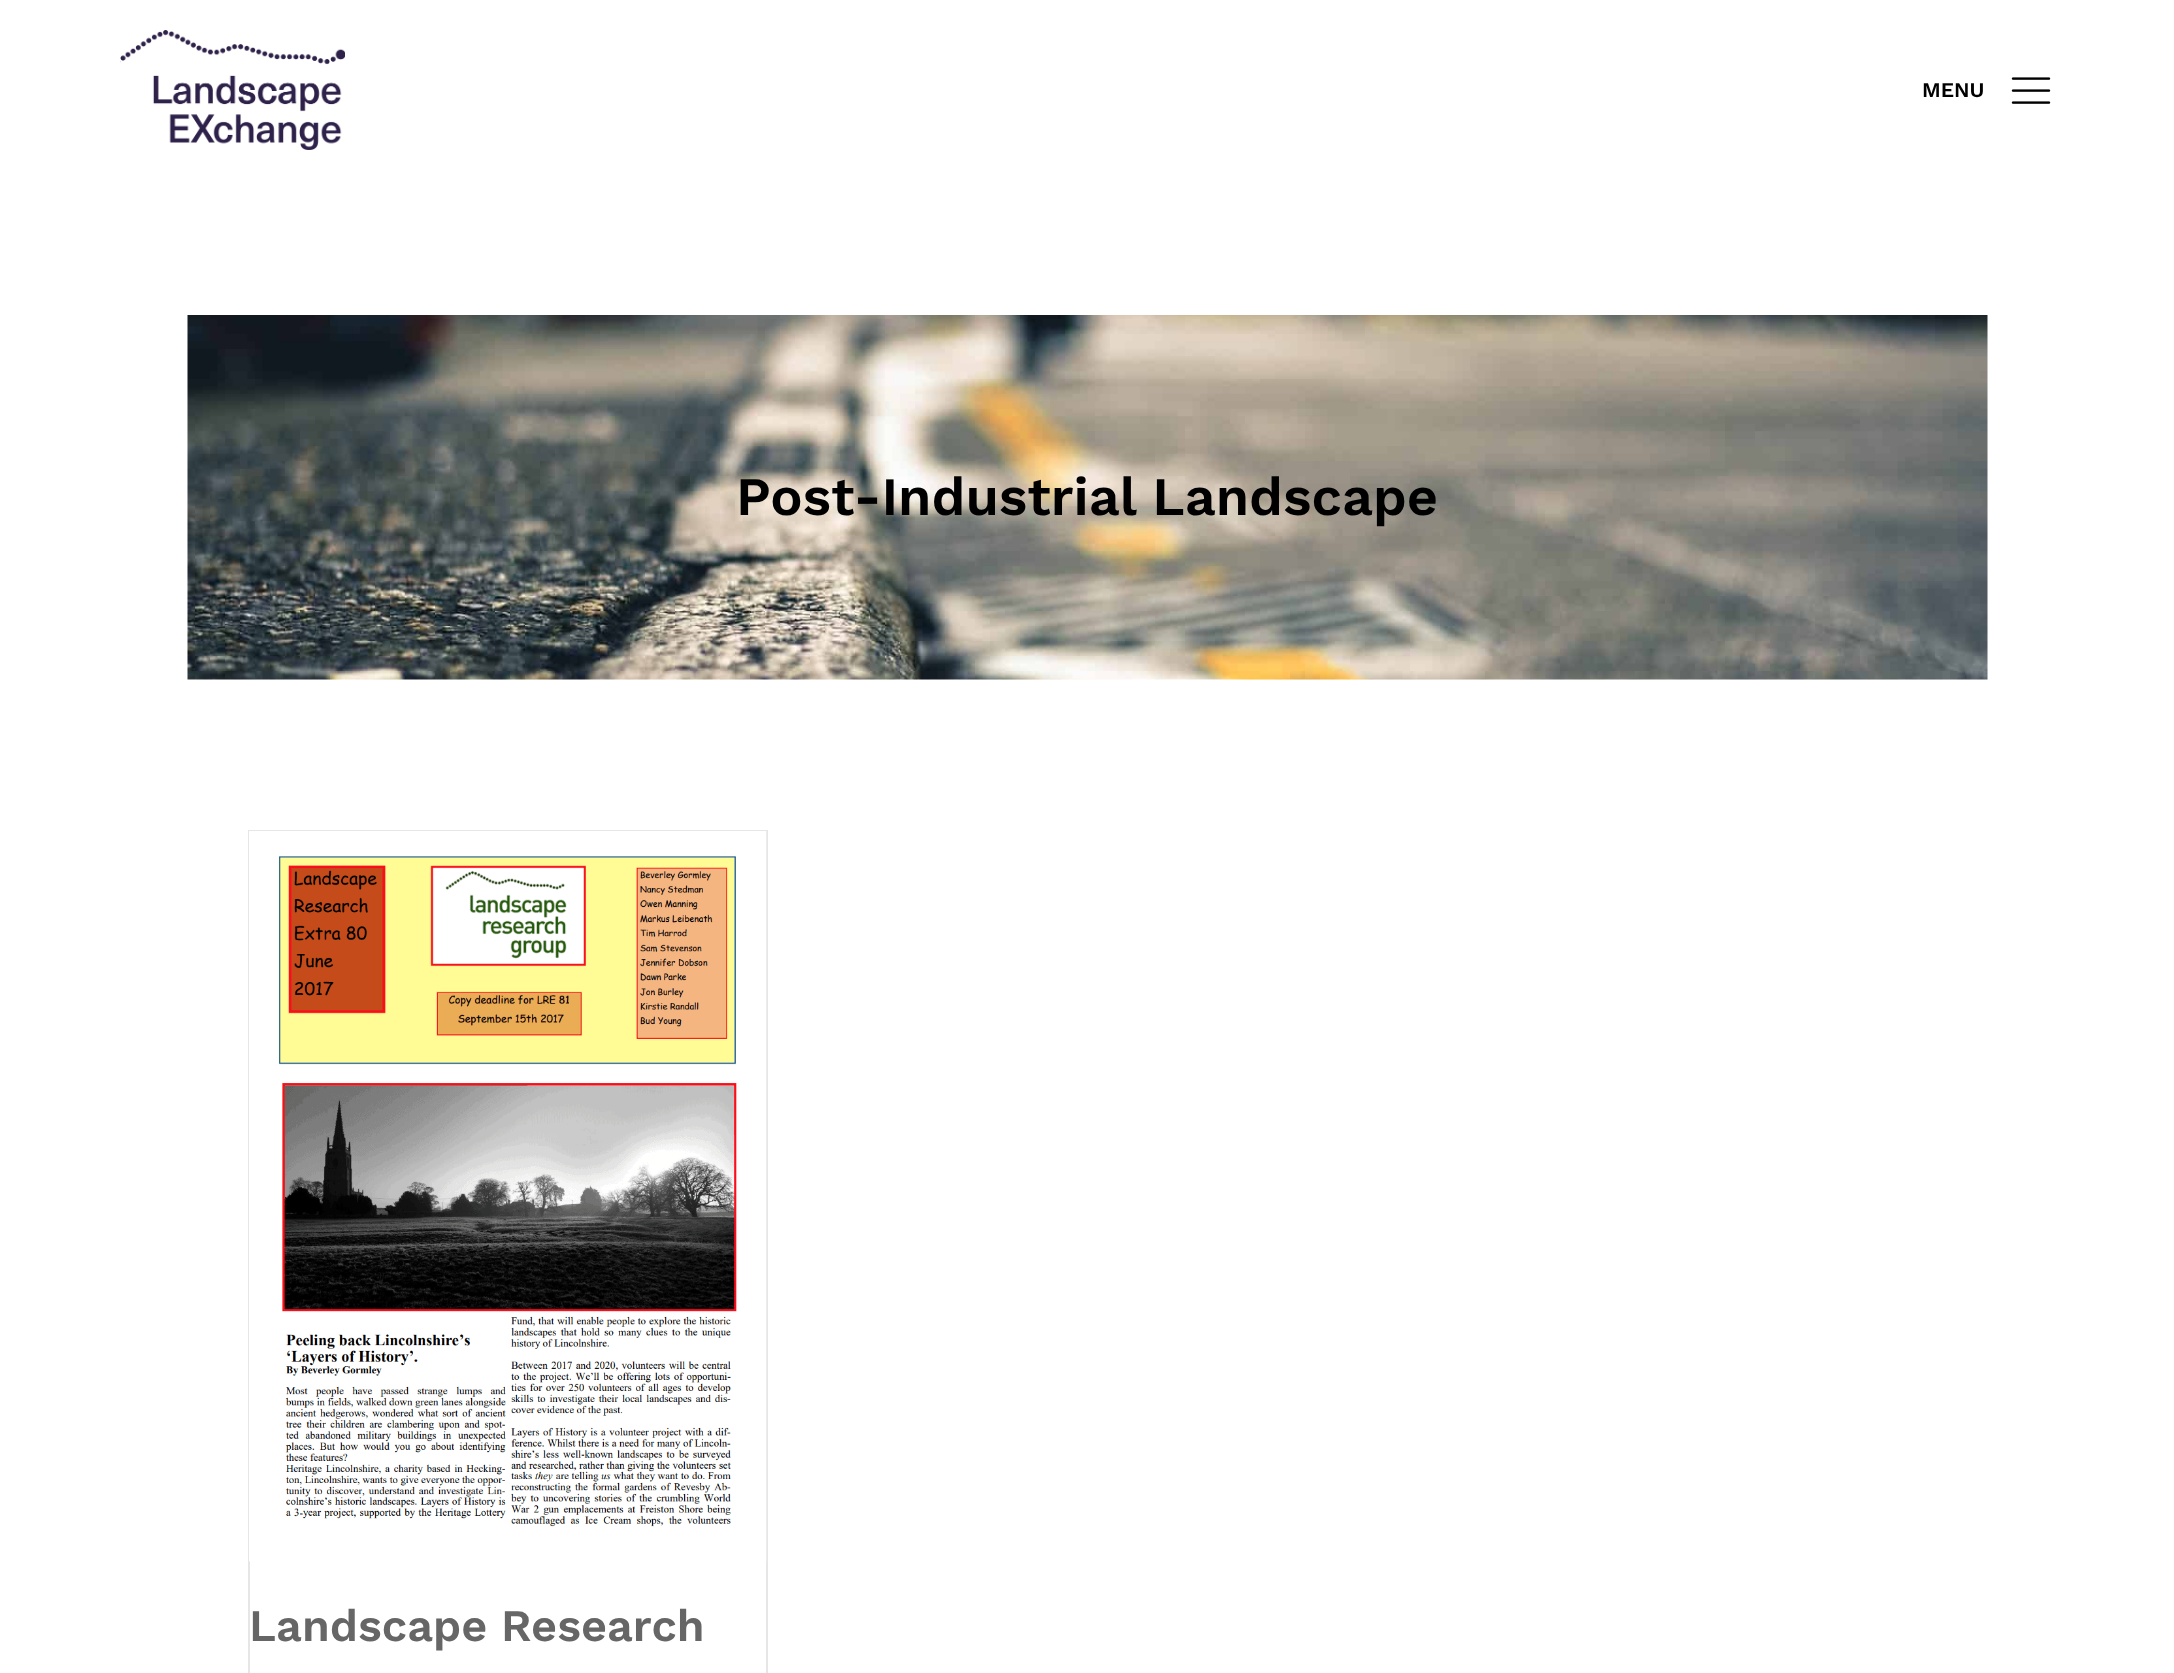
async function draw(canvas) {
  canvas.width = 2174
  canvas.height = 1673
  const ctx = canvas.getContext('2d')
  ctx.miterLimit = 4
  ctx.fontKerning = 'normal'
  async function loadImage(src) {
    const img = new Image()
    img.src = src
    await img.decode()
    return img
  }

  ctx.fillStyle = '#fff'
  ctx.fillRect(0, 0, 2174, 1673)
  ctx.drawImage(await loadImage('image0.png'), 120, 30, 225, 120)
  ctx.font = '600 21px Work Sans'
  ctx.fillStyle = '#000'
  ctx.fillText('MENU', 1922, 97)
  ctx.drawImage(await loadImage('image1.png'), 2011, 77, 40, 27)
  ctx.drawImage(await loadImage('image2.png'), 187, 315, 1801, 365)
  ctx.font = '600 54px Work Sans'
  ctx.fillText('Post-Industrial Landscape', 736, 515)
  ctx.strokeStyle = '#e6e6e6'
  ctx.lineWidth = 2
  ctx.strokeRect(249, 831, 518, 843)
  ctx.drawImage(await loadImage('image3.png'), 249, 831, 518, 731)
  ctx.font = '600 45px Work Sans'
  ctx.fillStyle = '#666'
  ctx.fillText('Landscape Research', 249, 1641)
}

draw(document.querySelector('canvas'))
